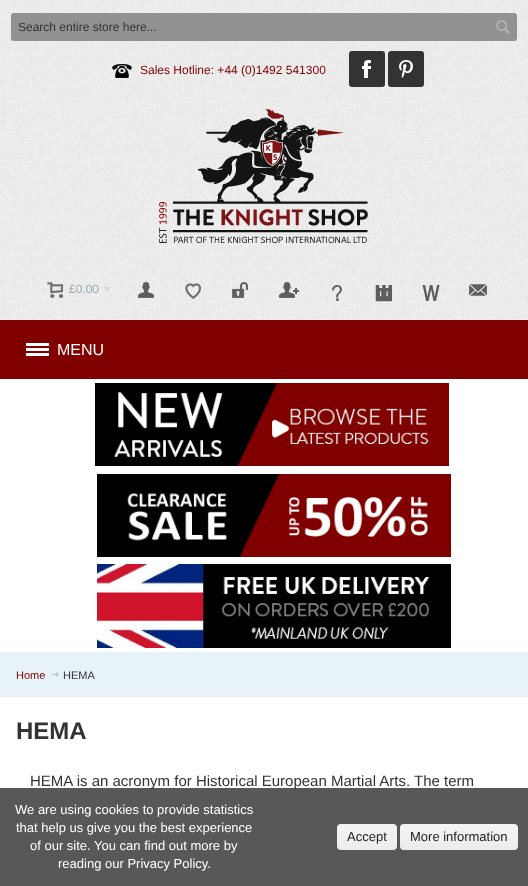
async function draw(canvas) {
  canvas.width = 528
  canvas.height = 886
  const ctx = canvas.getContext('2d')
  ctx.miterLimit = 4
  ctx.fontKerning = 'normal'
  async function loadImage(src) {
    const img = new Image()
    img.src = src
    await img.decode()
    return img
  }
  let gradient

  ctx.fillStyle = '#fff'
  ctx.fillRect(0, 0, 528, 886)
  ctx.fillStyle = '#f0f0f0'
  ctx.fillRect(0, 0, 528, 320)
  ctx.drawImage(await loadImage('image0.png'), 0, 0, 528, 320)
  ctx.fillStyle = '#929292'
  ctx.beginPath()
  ctx.roundRect(11, 13, 506, 28, 3)
  ctx.fill()
  ctx.font = '12px Liberation Sans'
  ctx.fillStyle = '#333'
  ctx.fillText('Search entire store here...', 18, 31)
  ctx.drawImage(await loadImage('image1.png'), 496, 20, 14, 14)
  ctx.drawImage(await loadImage('image2.png'), 112, 64, 20, 14)
  ctx.fillStyle = '#800000'
  ctx.fillText('Sales Hotline: +44 (0)1492 541300', 140, 74)
  ctx.fillStyle = '#333'
  ctx.beginPath()
  ctx.roundRect(349, 51, 36, 36, 3)
  ctx.fill()
  ctx.drawImage(await loadImage('image3.png'), 362, 60, 9, 18)
  ctx.beginPath()
  ctx.roundRect(388, 51, 36, 36, 3)
  ctx.fill()
  ctx.drawImage(await loadImage('image4.png'), 399, 60, 14, 18)
  ctx.drawImage(await loadImage('image5.png'), 159, 109, 209, 134)
  ctx.drawImage(await loadImage('image6.png'), 47, 282, 16, 16)
  ctx.fillStyle = '#95a8a9'
  ctx.fillText('£0.00', 69, 293)
  ctx.fillStyle = '#95a8a94d'
  ctx.beginPath()
  ctx.moveTo(103, 287)
  ctx.lineTo(111, 287)
  ctx.lineTo(107, 291)
  ctx.closePath()
  ctx.fill()
  ctx.drawImage(await loadImage('image7.png'), 138, 282, 16, 16)
  ctx.drawImage(await loadImage('image8.png'), 185, 283, 16, 16)
  ctx.drawImage(await loadImage('image9.png'), 232, 282, 16, 16)
  ctx.drawImage(await loadImage('image10.png'), 279, 282, 20, 16)
  ctx.drawImage(await loadImage('image11.png'), 332, 285, 10, 16)
  ctx.drawImage(await loadImage('image12.png'), 375, 285, 17, 17)
  ctx.drawImage(await loadImage('image13.png'), 422, 285, 18, 16)
  ctx.drawImage(await loadImage('image14.png'), 469, 284, 18, 12)
  ctx.fillStyle = '#800000'
  ctx.fillRect(0, 320, 528, 59)
  ctx.fillStyle = '#fff'
  ctx.fillRect(26, 343, 23, 3)
  ctx.fillRect(26, 348, 23, 3)
  ctx.fillRect(26, 353, 23, 3)
  ctx.font = '16px Liberation Sans'
  ctx.fillText('MENU', 57, 355)
  ctx.drawImage(await loadImage('image15.png'), 95, 383, 354, 83)
  ctx.drawImage(await loadImage('image16.png'), 97, 474, 354, 83)
  ctx.drawImage(await loadImage('image17.png'), 97, 564, 354, 84)
  ctx.fillStyle = '#e7f3f7'
  ctx.fillRect(0, 652, 528, 45)
  ctx.font = '11px Liberation Sans'
  ctx.fillStyle = '#800000'
  ctx.fillText('Home', 16, 679)
  ctx.drawImage(await loadImage('image18.png'), 52, 672, 7, 5)
  ctx.fillStyle = '#333'
  ctx.fillText('HEMA', 63, 679)
  ctx.font = 'bold 24px Liberation Sans'
  ctx.fillText('HEMA', 16, 739)
  ctx.font = '15px Liberation Sans'
  ctx.fillText('HEMA is an acronym for Historical European Martial Arts. The term', 30, 786)
  ctx.fillStyle = '#2e2e2ecc'
  ctx.fillRect(0, 788, 528, 98)
  ctx.font = '13px Liberation Sans'
  ctx.fillStyle = '#fff'
  ctx.fillText('We are using cookies to provide statistics', 15, 814)
  ctx.fillText('that help us give you the best experience', 16, 832)
  ctx.fillText('of our site. You can find out more by', 30, 850)
  ctx.fillText('reading our Privacy Policy.', 58, 868)
  gradient = ctx.createLinearGradient(367, 824, 367, 850)
  gradient.addColorStop(0, '#f4f4f4')
  gradient.addColorStop(1, '#ececec')
  ctx.fillStyle = gradient
  ctx.beginPath()
  ctx.roundRect(337, 824, 60, 26, 4)
  ctx.fill()
  ctx.fillStyle = '#222'
  ctx.fillText('Accept', 347, 841)
  gradient = ctx.createLinearGradient(459, 824, 459, 850)
  gradient.addColorStop(0, '#f4f4f4')
  gradient.addColorStop(1, '#ececec')
  ctx.fillStyle = gradient
  ctx.beginPath()
  ctx.roundRect(400, 824, 118, 26, 4)
  ctx.fill()
  ctx.fillStyle = '#222'
  ctx.fillText('More information', 410, 841)
}

draw(document.querySelector('canvas'))
